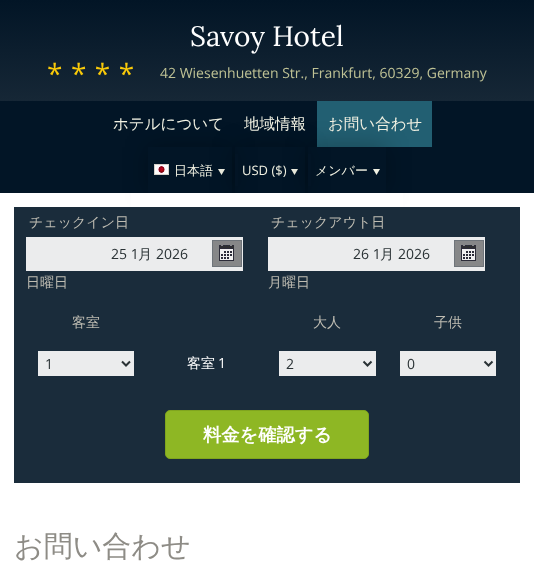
async function draw(canvas) {
  canvas.width = 534
  canvas.height = 564
  const ctx = canvas.getContext('2d')
  ctx.miterLimit = 4
  ctx.fontKerning = 'normal'
  async function loadImage(src) {
    const img = new Image()
    img.src = src
    await img.decode()
    return img
  }
  let gradient

  ctx.fillStyle = '#fff'
  ctx.fillRect(0, 0, 534, 564)
  gradient = ctx.createLinearGradient(267, 0, 267, 101)
  gradient.addColorStop(0, '#021526')
  gradient.addColorStop(1, '#162736')
  ctx.fillStyle = gradient
  ctx.fillRect(0, 0, 534, 101)
  ctx.font = '28px Lora'
  ctx.fillStyle = '#fff'
  ctx.fillText('Savoy Hotel', 190, 46)
  ctx.letterSpacing = '8.5px'
  ctx.font = '28px Open Sans'
  ctx.fillStyle = '#f9ca09'
  ctx.fillText('****', 47, 84)
  ctx.letterSpacing = '0px'
  ctx.font = '14px Open Sans'
  ctx.fillStyle = '#bfc295'
  ctx.fillText('42 Wiesenhuetten Str., Frankfurt, 60329, Germany', 160, 78)
  ctx.fillStyle = '#021526'
  ctx.fillRect(0, 101, 534, 92)
  ctx.font = '500 15.5px WenQuanYi Zen Hei'
  ctx.fillStyle = '#f2f2e3'
  ctx.fillText('ホテルについて', 113, 129)
  ctx.fillText('地域情報', 244, 129)
  ctx.fillStyle = '#225f72'
  ctx.fillRect(317, 101, 115, 46)
  ctx.fillStyle = '#f2f2e3'
  ctx.fillText('お問い合わせ', 328, 129)
  ctx.save()
  ctx.beginPath()
  ctx.moveTo(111, 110)
  ctx.lineTo(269, 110)
  ctx.lineTo(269, 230)
  ctx.lineTo(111, 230)
  ctx.closePath()
  ctx.moveTo(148, 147)
  ctx.lineTo(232, 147)
  ctx.lineTo(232, 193)
  ctx.lineTo(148, 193)
  ctx.closePath()
  ctx.clip('evenodd')
  ctx.fillStyle = '#00000045'
  ctx.filter = 'blur(12px)'
  ctx.beginPath()
  ctx.rect(148, 147, 84, 46)
  ctx.fill()
  ctx.filter = 'none'
  ctx.restore()
  ctx.drawImage(await loadImage('image0.png'), 154, 164, 15, 11)
  ctx.font = '500 13px WenQuanYi Zen Hei'
  ctx.fillText('日本語', 174, 175)
  ctx.drawImage(await loadImage('image1.png'), 218, 169, 7, 6)
  ctx.save()
  ctx.beginPath()
  ctx.moveTo(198, 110)
  ctx.lineTo(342, 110)
  ctx.lineTo(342, 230)
  ctx.lineTo(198, 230)
  ctx.closePath()
  ctx.moveTo(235, 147)
  ctx.lineTo(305, 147)
  ctx.lineTo(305, 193)
  ctx.lineTo(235, 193)
  ctx.closePath()
  ctx.clip('evenodd')
  ctx.fillStyle = '#00000045'
  ctx.filter = 'blur(12px)'
  ctx.beginPath()
  ctx.rect(235, 147, 70, 46)
  ctx.fill()
  ctx.filter = 'none'
  ctx.restore()
  ctx.fillStyle = '#021526e6'
  ctx.fillRect(235, 154, 3, 32)
  ctx.font = '13px Open Sans'
  ctx.fillStyle = '#f2f2e3'
  ctx.fillText('USD ($)', 242, 175)
  ctx.drawImage(await loadImage('image1.png'), 291, 169, 7, 6)
  ctx.save()
  ctx.beginPath()
  ctx.moveTo(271, 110)
  ctx.lineTo(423, 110)
  ctx.lineTo(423, 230)
  ctx.lineTo(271, 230)
  ctx.closePath()
  ctx.moveTo(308, 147)
  ctx.lineTo(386, 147)
  ctx.lineTo(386, 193)
  ctx.lineTo(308, 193)
  ctx.closePath()
  ctx.clip('evenodd')
  ctx.fillStyle = '#00000045'
  ctx.filter = 'blur(12px)'
  ctx.beginPath()
  ctx.rect(308, 147, 78, 46)
  ctx.fill()
  ctx.filter = 'none'
  ctx.restore()
  ctx.fillStyle = '#021526e6'
  ctx.fillRect(308, 154, 3, 32)
  ctx.font = '500 13px WenQuanYi Zen Hei'
  ctx.fillStyle = '#f2f2e3'
  ctx.fillText('メンバー', 315, 175)
  ctx.drawImage(await loadImage('image1.png'), 373, 169, 7, 6)
  ctx.fillStyle = '#fff'
  ctx.fillRect(131, 193, 272, 21)
  ctx.fillStyle = '#1a2c3b'
  ctx.fillRect(14, 207, 506, 276)
  ctx.font = '500 14px WenQuanYi Zen Hei'
  ctx.fillStyle = '#bebcb2'
  ctx.fillText('チェックイン日', 29, 227)
  ctx.fillStyle = '#ebeced'
  ctx.fillRect(26, 237, 217, 34)
  ctx.fillStyle = '#868788'
  ctx.fillRect(213, 241, 28, 25)
  ctx.drawImage(await loadImage('image2.png'), 219, 245, 15, 16)
  ctx.strokeStyle = '#6e747a'
  ctx.strokeRect(212.5, 240.5, 29, 26)
  ctx.font = '14px Open Sans'
  ctx.fillStyle = '#2a3235'
  ctx.fillText('25 1', 111, 259)
  ctx.font = '500 14px WenQuanYi Zen Hei'
  ctx.fillText('月', 138, 259)
  ctx.font = '14px Open Sans'
  ctx.fillText('2026', 156, 259)
  ctx.font = '500 14px WenQuanYi Zen Hei'
  ctx.fillStyle = '#bebcb2'
  ctx.fillText('日曜日', 26, 287)
  ctx.fillText('チェックアウト日', 271, 227)
  ctx.fillStyle = '#ebeced'
  ctx.fillRect(268, 237, 217, 34)
  ctx.fillStyle = '#868788'
  ctx.fillRect(455, 241, 28, 25)
  ctx.drawImage(await loadImage('image2.png'), 461, 245, 15, 16)
  ctx.strokeRect(454.5, 240.5, 29, 26)
  ctx.font = '14px Open Sans'
  ctx.fillStyle = '#2a3235'
  ctx.fillText('26 1', 353, 259)
  ctx.font = '500 14px WenQuanYi Zen Hei'
  ctx.fillText('月', 380, 259)
  ctx.font = '14px Open Sans'
  ctx.fillText('2026', 398, 259)
  ctx.font = '500 14px WenQuanYi Zen Hei'
  ctx.fillStyle = '#bebcb2'
  ctx.fillText('月曜日', 268, 287)
  ctx.fillText('客室', 72, 327)
  ctx.fillText('大人', 313, 327)
  ctx.fillText('子供', 434, 327)
  ctx.fillStyle = '#ebeced'
  ctx.fillRect(38, 351, 96, 25)
  ctx.beginPath()
  ctx.moveTo(122, 361.5)
  ctx.lineTo(126, 365.5)
  ctx.lineTo(130, 361.5)
  ctx.strokeStyle = '#2a3235'
  ctx.lineWidth = 2
  ctx.stroke()
  ctx.font = '14px Open Sans'
  ctx.fillStyle = '#2a3235'
  ctx.fillText('1', 45, 369)
  ctx.font = '500 14px WenQuanYi Zen Hei'
  ctx.fillStyle = '#fff'
  ctx.fillText('客室', 187, 368)
  ctx.font = '14px Open Sans'
  ctx.fillText('1', 218, 368)
  ctx.fillStyle = '#ebeced'
  ctx.fillRect(279, 351, 97, 25)
  ctx.beginPath()
  ctx.moveTo(363.5, 361.5)
  ctx.lineTo(367.5, 365.5)
  ctx.lineTo(371.5, 361.5)
  ctx.stroke()
  ctx.fillStyle = '#2a3235'
  ctx.fillText('2', 286, 369)
  ctx.fillStyle = '#ebeced'
  ctx.fillRect(400, 351, 96, 25)
  ctx.beginPath()
  ctx.moveTo(484.5, 361.5)
  ctx.lineTo(488.5, 365.5)
  ctx.lineTo(492.5, 361.5)
  ctx.stroke()
  ctx.fillStyle = '#2a3235'
  ctx.fillText('0', 407, 369)
  ctx.fillStyle = '#8eb724'
  ctx.beginPath()
  ctx.roundRect(165.5, 410.5, 203, 48, 4.5)
  ctx.fill()
  ctx.strokeStyle = '#80a51e'
  ctx.lineWidth = 1
  ctx.stroke()
  ctx.font = 'bold 18.25px WenQuanYi Zen Hei'
  ctx.fillStyle = '#fff'
  ctx.fillText('料金を確認する', 203, 441)
  ctx.font = '500 29px WenQuanYi Zen Hei'
  ctx.fillStyle = '#8e8c86'
  ctx.fillText('お問い合わせ', 14, 556)
}

draw(document.querySelector('canvas'))
